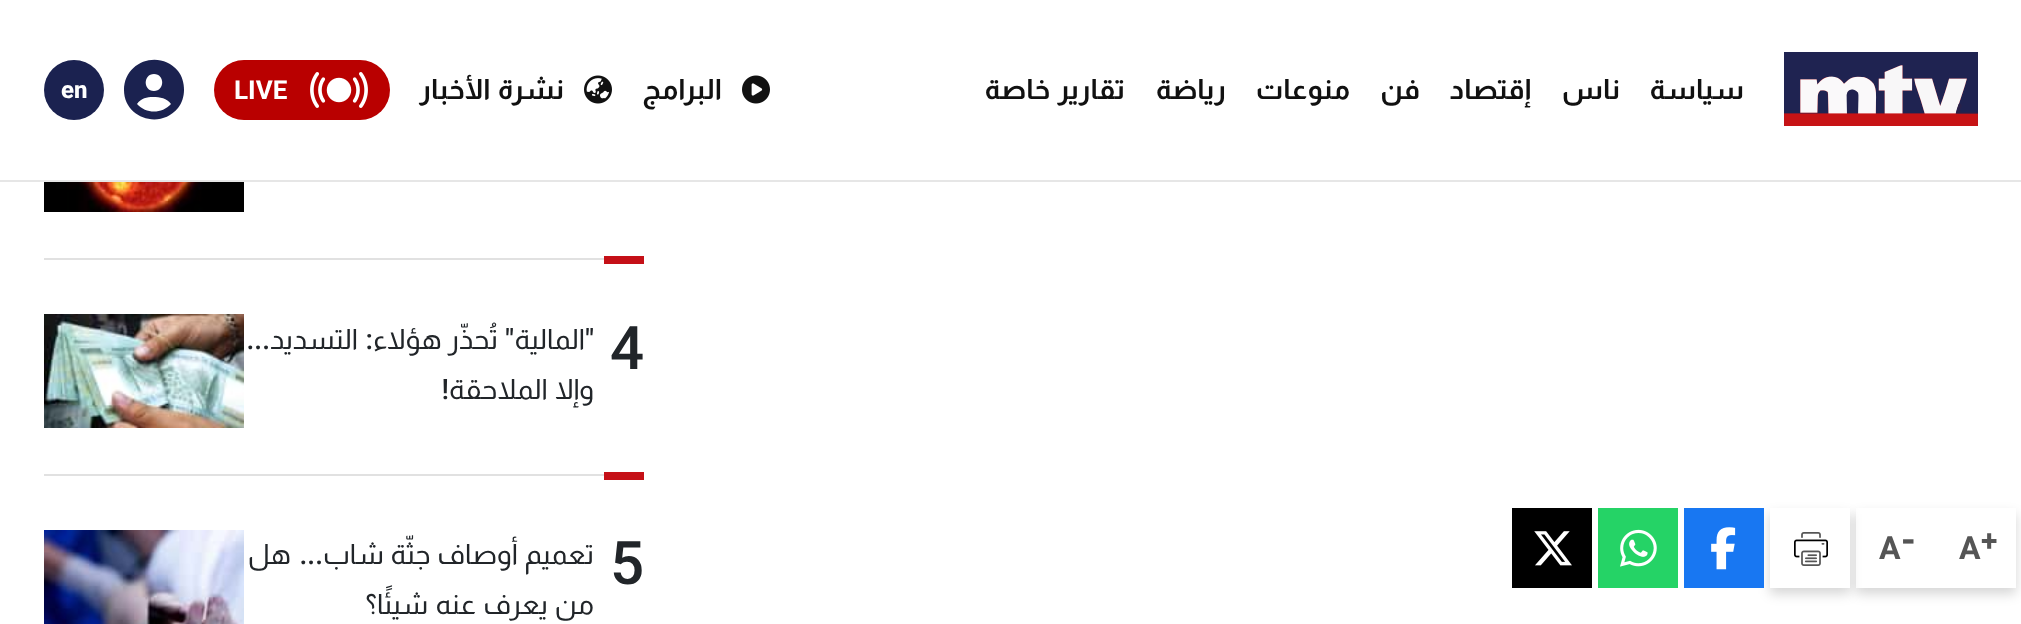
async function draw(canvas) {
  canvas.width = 2021
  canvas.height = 624
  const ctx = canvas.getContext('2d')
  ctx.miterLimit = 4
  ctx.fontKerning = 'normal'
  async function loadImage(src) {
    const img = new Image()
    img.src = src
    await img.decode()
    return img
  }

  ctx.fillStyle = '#fff'
  ctx.fillRect(0, 0, 2021, 624)
  ctx.fillStyle = '#e6e6e6'
  ctx.fillRect(0, 180, 2021, 2)
  ctx.drawImage(await loadImage('image0.png'), 1784, 52, 194, 74)
  ctx.direction = 'rtl'
  ctx.font = 'bold 28px Almarai'
  ctx.fillStyle = '#111'
  ctx.fillText('سياسة', 1744, 99)
  ctx.fillText('ناس', 1620, 99)
  ctx.fillText('إقتصاد', 1531, 99)
  ctx.fillText('فن', 1420, 99)
  ctx.fillText('منوعات', 1350, 99)
  ctx.fillText('رياضة', 1226, 99)
  ctx.wordSpacing = '2px'
  ctx.fillText('تقارير خاصة', 1125, 99)
  ctx.drawImage(await loadImage('image1.png'), 742, 75, 28, 29)
  ctx.wordSpacing = '0px'
  ctx.fillText('البرامج', 722, 99)
  ctx.drawImage(await loadImage('image2.png'), 584, 75, 28, 29)
  ctx.wordSpacing = '2px'
  ctx.fillText('نشرة الأخبار', 564, 99)
  ctx.fillStyle = '#b90000'
  ctx.beginPath()
  ctx.roundRect(214, 60, 176, 60, 30)
  ctx.fill()
  ctx.drawImage(await loadImage('image3.png'), 310, 72, 58, 36)
  ctx.wordSpacing = '0px'
  ctx.direction = 'ltr'
  ctx.font = 'bold 26px Roboto'
  ctx.fillStyle = '#fff'
  ctx.fillText('LIVE', 234, 99)
  ctx.fillStyle = '#1b2250'
  ctx.beginPath()
  ctx.moveTo(171, 104)
  ctx.bezierCurveTo(167, 98, 160, 97, 153, 97)
  ctx.bezierCurveTo(147, 97, 141, 98, 137, 104)
  ctx.bezierCurveTo(146, 114, 162, 114, 171, 104)
  ctx.closePath()
  ctx.moveTo(124, 90)
  ctx.bezierCurveTo(124, 61, 160, 49, 178, 71)
  ctx.bezierCurveTo(182, 76, 184, 83, 184, 90)
  ctx.bezierCurveTo(184, 96, 182, 103, 178, 108)
  ctx.bezierCurveTo(160, 130, 124, 118, 124, 90)
  ctx.closePath()
  ctx.moveTo(154, 91)
  ctx.bezierCurveTo(165, 91, 165, 74, 154, 74)
  ctx.bezierCurveTo(143, 74, 143, 91, 154, 91)
  ctx.closePath()
  ctx.fill()
  ctx.beginPath()
  ctx.arc(74, 90, 30, 0, 2 * Math.PI)
  ctx.fill()
  ctx.font = '800 24px Roboto'
  ctx.fillStyle = '#fff'
  ctx.fillText('en', 61, 98)
  ctx.save()
  ctx.beginPath()
  ctx.moveTo(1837, 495)
  ctx.lineTo(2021, 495)
  ctx.lineTo(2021, 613)
  ctx.lineTo(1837, 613)
  ctx.closePath()
  ctx.moveTo(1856, 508)
  ctx.lineTo(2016, 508)
  ctx.lineTo(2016, 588)
  ctx.lineTo(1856, 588)
  ctx.closePath()
  ctx.clip('evenodd')
  ctx.fillStyle = '#00000029'
  ctx.filter = 'blur(6px)'
  ctx.beginPath()
  ctx.rect(1856, 514, 160, 80)
  ctx.fill()
  ctx.filter = 'none'
  ctx.restore()
  ctx.font = 'bold 30px Roboto'
  ctx.fillStyle = '#555'
  ctx.fillText('+', 1981, 551)
  ctx.font = 'bold 32px Roboto'
  ctx.fillText('A', 1959, 559)
  ctx.font = 'bold 38px Roboto'
  ctx.fillText('-', 1901, 553)
  ctx.font = 'bold 32px Roboto'
  ctx.fillText('A', 1879, 559)
  ctx.fillStyle = '#00000029'
  ctx.filter = 'blur(6px)'
  ctx.beginPath()
  ctx.rect(1770, 514, 80, 80)
  ctx.fill()
  ctx.filter = 'none'
  ctx.fillStyle = '#fff'
  ctx.fillRect(1770, 508, 80, 80)
  ctx.drawImage(await loadImage('image4.png'), 1794, 532, 34, 34)
  ctx.fillStyle = '#1877f2'
  ctx.fillRect(1684, 508, 80, 80)
  ctx.drawImage(await loadImage('image5.png'), 1711, 527, 25, 43)
  ctx.fillStyle = '#25d366'
  ctx.fillRect(1598, 508, 80, 80)
  ctx.drawImage(await loadImage('image6.png'), 1620, 529, 37, 38)
  ctx.fillStyle = '#000'
  ctx.fillRect(1512, 508, 80, 80)
  ctx.drawImage(await loadImage('image7.png'), 1534, 531, 38, 35)
  ctx.fillStyle = '#e1e1e1'
  ctx.fillRect(44, 258, 560, 2)
  ctx.drawImage(await loadImage('image8.png'), 44, 182, 200, 30)
  ctx.fillStyle = '#c51017'
  ctx.fillRect(604, 256, 40, 8)
  ctx.fillStyle = '#e1e1e1'
  ctx.fillRect(44, 474, 560, 2)
  ctx.font = '500 60px Roboto'
  ctx.fillStyle = '#212529'
  ctx.fillText('4', 610, 369)
  ctx.direction = 'rtl'
  ctx.font = '500 28px Roboto'
  ctx.fillText('"', 594, 349)
  ctx.font = '28px Almarai'
  ctx.fillText('المالية', 585, 349)
  ctx.font = '500 28px Roboto'
  ctx.fillText('"', 514, 349)
  ctx.wordSpacing = '1px'
  ctx.font = '28px Almarai'
  ctx.fillText('تُحذّر هؤلاء', 498, 349)
  ctx.wordSpacing = '0px'
  ctx.fillText('التسديد', 358, 349)
  ctx.font = '500 28px Roboto'
  ctx.fillText(':', 373, 349)
  ctx.fillText('...', 270, 349)
  ctx.wordSpacing = '2px'
  ctx.font = '28px Almarai'
  ctx.fillText('وإلا الملاحقة', 594, 399)
  ctx.wordSpacing = '0px'
  ctx.font = '500 28px Roboto'
  ctx.fillText('!', 449, 399)
  ctx.drawImage(await loadImage('image9.png'), 44, 314, 200, 114)
  ctx.fillStyle = '#c51017'
  ctx.fillRect(604, 472, 40, 8)
  ctx.direction = 'ltr'
  ctx.font = '500 60px Roboto'
  ctx.fillStyle = '#212529'
  ctx.fillText('5', 610, 584)
  ctx.wordSpacing = '1.5px'
  ctx.direction = 'rtl'
  ctx.font = '28px Almarai'
  ctx.fillText('تعميم أوصاف جثّة شاب', 594, 564)
  ctx.wordSpacing = '0px'
  ctx.font = '500 28px Roboto'
  ctx.fillText('...', 323, 564)
  ctx.font = '28px Almarai'
  ctx.fillText('هل', 291, 564)
  ctx.wordSpacing = '2px'
  ctx.fillText('من يعرف عنه شيئًا؟', 594, 614)
  ctx.drawImage(await loadImage('image10.png'), 44, 530, 200, 94)
}

draw(document.querySelector('canvas'))
